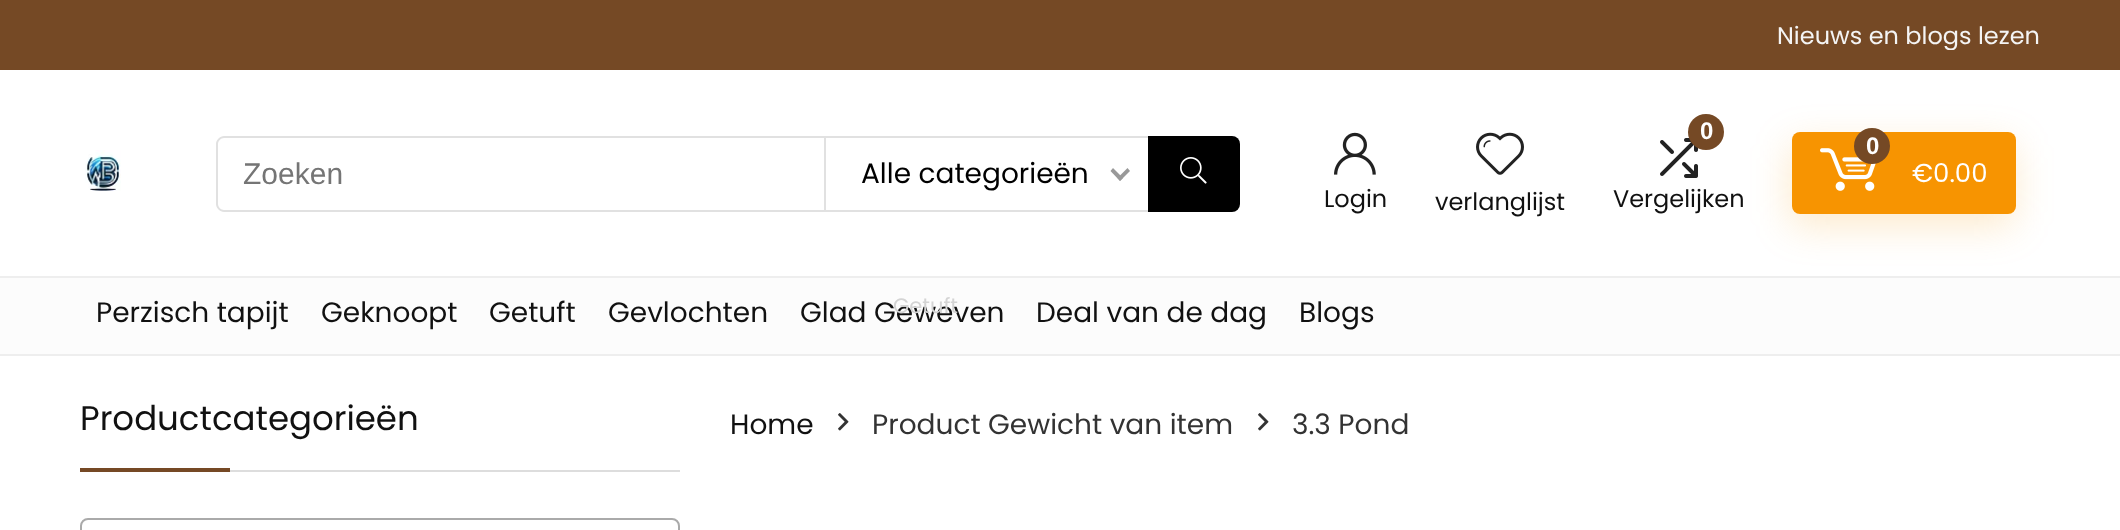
async function draw(canvas) {
  canvas.width = 2120
  canvas.height = 530
  const ctx = canvas.getContext('2d')
  ctx.miterLimit = 4
  ctx.fontKerning = 'normal'
  async function loadImage(src) {
    const img = new Image()
    img.src = src
    await img.decode()
    return img
  }

  ctx.fillStyle = '#fff'
  ctx.fillRect(0, 0, 2120, 530)
  ctx.fillStyle = '#754925'
  ctx.fillRect(0, 0, 2120, 70)
  ctx.save()
  ctx.beginPath()
  ctx.rect(1778, 20, 262, 30)
  ctx.clip()
  ctx.font = '24px Poppins'
  ctx.fillStyle = '#f4f4f4'
  ctx.fillText('Nieuws en blogs lezen', 1777, 44)
  ctx.restore()
  ctx.drawImage(await loadImage('image0.png'), 85, 150, 36, 41)
  ctx.fillStyle = '#e1e1e1'
  ctx.beginPath()
  ctx.moveTo(224, 136)
  ctx.lineTo(824, 136)
  ctx.lineTo(824, 212)
  ctx.lineTo(224, 212)
  ctx.bezierCurveTo(220, 212, 216, 208, 216, 204)
  ctx.lineTo(216, 144)
  ctx.bezierCurveTo(216, 140, 220, 136, 224, 136)
  ctx.closePath()
  ctx.moveTo(224, 138)
  ctx.lineTo(824, 138)
  ctx.lineTo(824, 210)
  ctx.lineTo(224, 210)
  ctx.bezierCurveTo(221, 210, 218, 207, 218, 204)
  ctx.lineTo(218, 144)
  ctx.bezierCurveTo(218, 141, 221, 138, 224, 138)
  ctx.closePath()
  ctx.fill('evenodd')
  ctx.font = '30px Liberation Sans'
  ctx.fillStyle = '#757575'
  ctx.fillText('Zoeken', 243, 184)
  ctx.fillStyle = '#e1e1e1'
  ctx.fillRect(824, 136, 324, 2)
  ctx.fillRect(824, 210, 324, 2)
  ctx.fillRect(824, 136, 2, 76)
  ctx.font = '28px Poppins'
  ctx.fillStyle = '#000'
  ctx.fillText('Alle categorieën', 861, 183)
  ctx.fillStyle = '#999'
  ctx.beginPath()
  ctx.moveTo(1127.5, 168)
  ctx.lineTo(1130, 171)
  ctx.lineTo(1120, 181)
  ctx.lineTo(1117.5, 178)
  ctx.closePath()
  ctx.fill()
  ctx.beginPath()
  ctx.moveTo(1113, 168)
  ctx.lineTo(1123, 178)
  ctx.lineTo(1120, 181)
  ctx.lineTo(1110.5, 171)
  ctx.closePath()
  ctx.fill()
  ctx.fillStyle = '#fcfcfc'
  ctx.fillRect(0, 278, 2120, 76)
  ctx.fillStyle = '#111'
  ctx.fillText('Glad Geweven', 800, 322)
  ctx.font = '21px Poppins'
  ctx.fillStyle = '#d4d4d4'
  ctx.fillText('Getuft', 893, 313)
  ctx.fillStyle = '#000'
  ctx.beginPath()
  ctx.roundRect(1148, 136, 92, 76, [0, 8, 8, 0])
  ctx.fill()
  ctx.drawImage(await loadImage('image1.png'), 1180, 157, 27, 27)
  ctx.drawImage(await loadImage('image2.png'), 1660, 138, 38, 40)
  ctx.fillStyle = '#754925'
  ctx.beginPath()
  ctx.arc(1706, 132, 18, 0, 2 * Math.PI)
  ctx.fill()
  ctx.font = 'bold 24px Liberation Sans'
  ctx.fillStyle = '#fff'
  ctx.fillText('0', 1700, 139)
  ctx.font = '24px Poppins'
  ctx.fillStyle = '#111'
  ctx.fillText('Vergelijken', 1613, 207)
  ctx.fillStyle = '#eee'
  ctx.fillRect(0, 276, 2120, 2)
  ctx.fillStyle = '#f7940133'
  ctx.filter = 'blur(19px)'
  ctx.beginPath()
  ctx.roundRect(1790, 144, 224, 82, 8)
  ctx.fill()
  ctx.filter = 'none'
  ctx.fillStyle = '#f79401'
  ctx.beginPath()
  ctx.roundRect(1792, 132, 224, 82, 8)
  ctx.fill()
  ctx.drawImage(await loadImage('image3.png'), 1820, 148, 56, 43)
  ctx.fillStyle = '#754925'
  ctx.beginPath()
  ctx.arc(1872, 146, 18, 0, 2 * Math.PI)
  ctx.fill()
  ctx.font = 'bold 24px Liberation Sans'
  ctx.fillStyle = '#fff'
  ctx.fillText('0', 1866, 154)
  ctx.font = '26px Poppins'
  ctx.fillText('€0.00', 1912, 182)
  ctx.drawImage(await loadImage('image4.png'), 1334, 132, 42, 43)
  ctx.font = '24px Poppins'
  ctx.fillStyle = '#111'
  ctx.fillText('Login', 1324, 207)
  ctx.drawImage(await loadImage('image5.png'), 1476, 132, 48, 43)
  ctx.fillText('verlanglijst', 1435, 210)
  ctx.fillStyle = '#eee'
  ctx.fillRect(0, 354, 2120, 2)
  ctx.font = '28px Poppins'
  ctx.fillStyle = '#111'
  ctx.fillText('Perzisch tapijt', 96, 322)
  ctx.fillText('Geknoopt', 321, 322)
  ctx.fillText('Getuft', 489, 322)
  ctx.fillText('Gevlochten', 608, 322)
  ctx.fillText('Deal van de dag', 1036, 322)
  ctx.fillText('Blogs', 1299, 322)
  ctx.fillStyle = '#ddd'
  ctx.fillRect(230, 470, 450, 2)
  ctx.font = '34px Poppins'
  ctx.fillStyle = '#111'
  ctx.fillText('Productcategorieën', 80, 430)
  ctx.fillStyle = '#754925'
  ctx.fillRect(80, 468, 150, 4)
  ctx.beginPath()
  ctx.roundRect(81, 519, 598, 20, 7)
  ctx.strokeStyle = '#aaa'
  ctx.lineWidth = 2
  ctx.stroke()
  ctx.font = '28px Poppins'
  ctx.fillStyle = '#111'
  ctx.fillText('Home', 730, 434)
  ctx.drawImage(await loadImage('image6.png'), 838, 413, 11, 18)
  ctx.fillStyle = '#333'
  ctx.fillText('Product Gewicht van item', 872, 434)
  ctx.drawImage(await loadImage('image6.png'), 1258, 413, 11, 18)
  ctx.fillText('3.3 Pond', 1292, 434)
}

draw(document.querySelector('canvas'))
